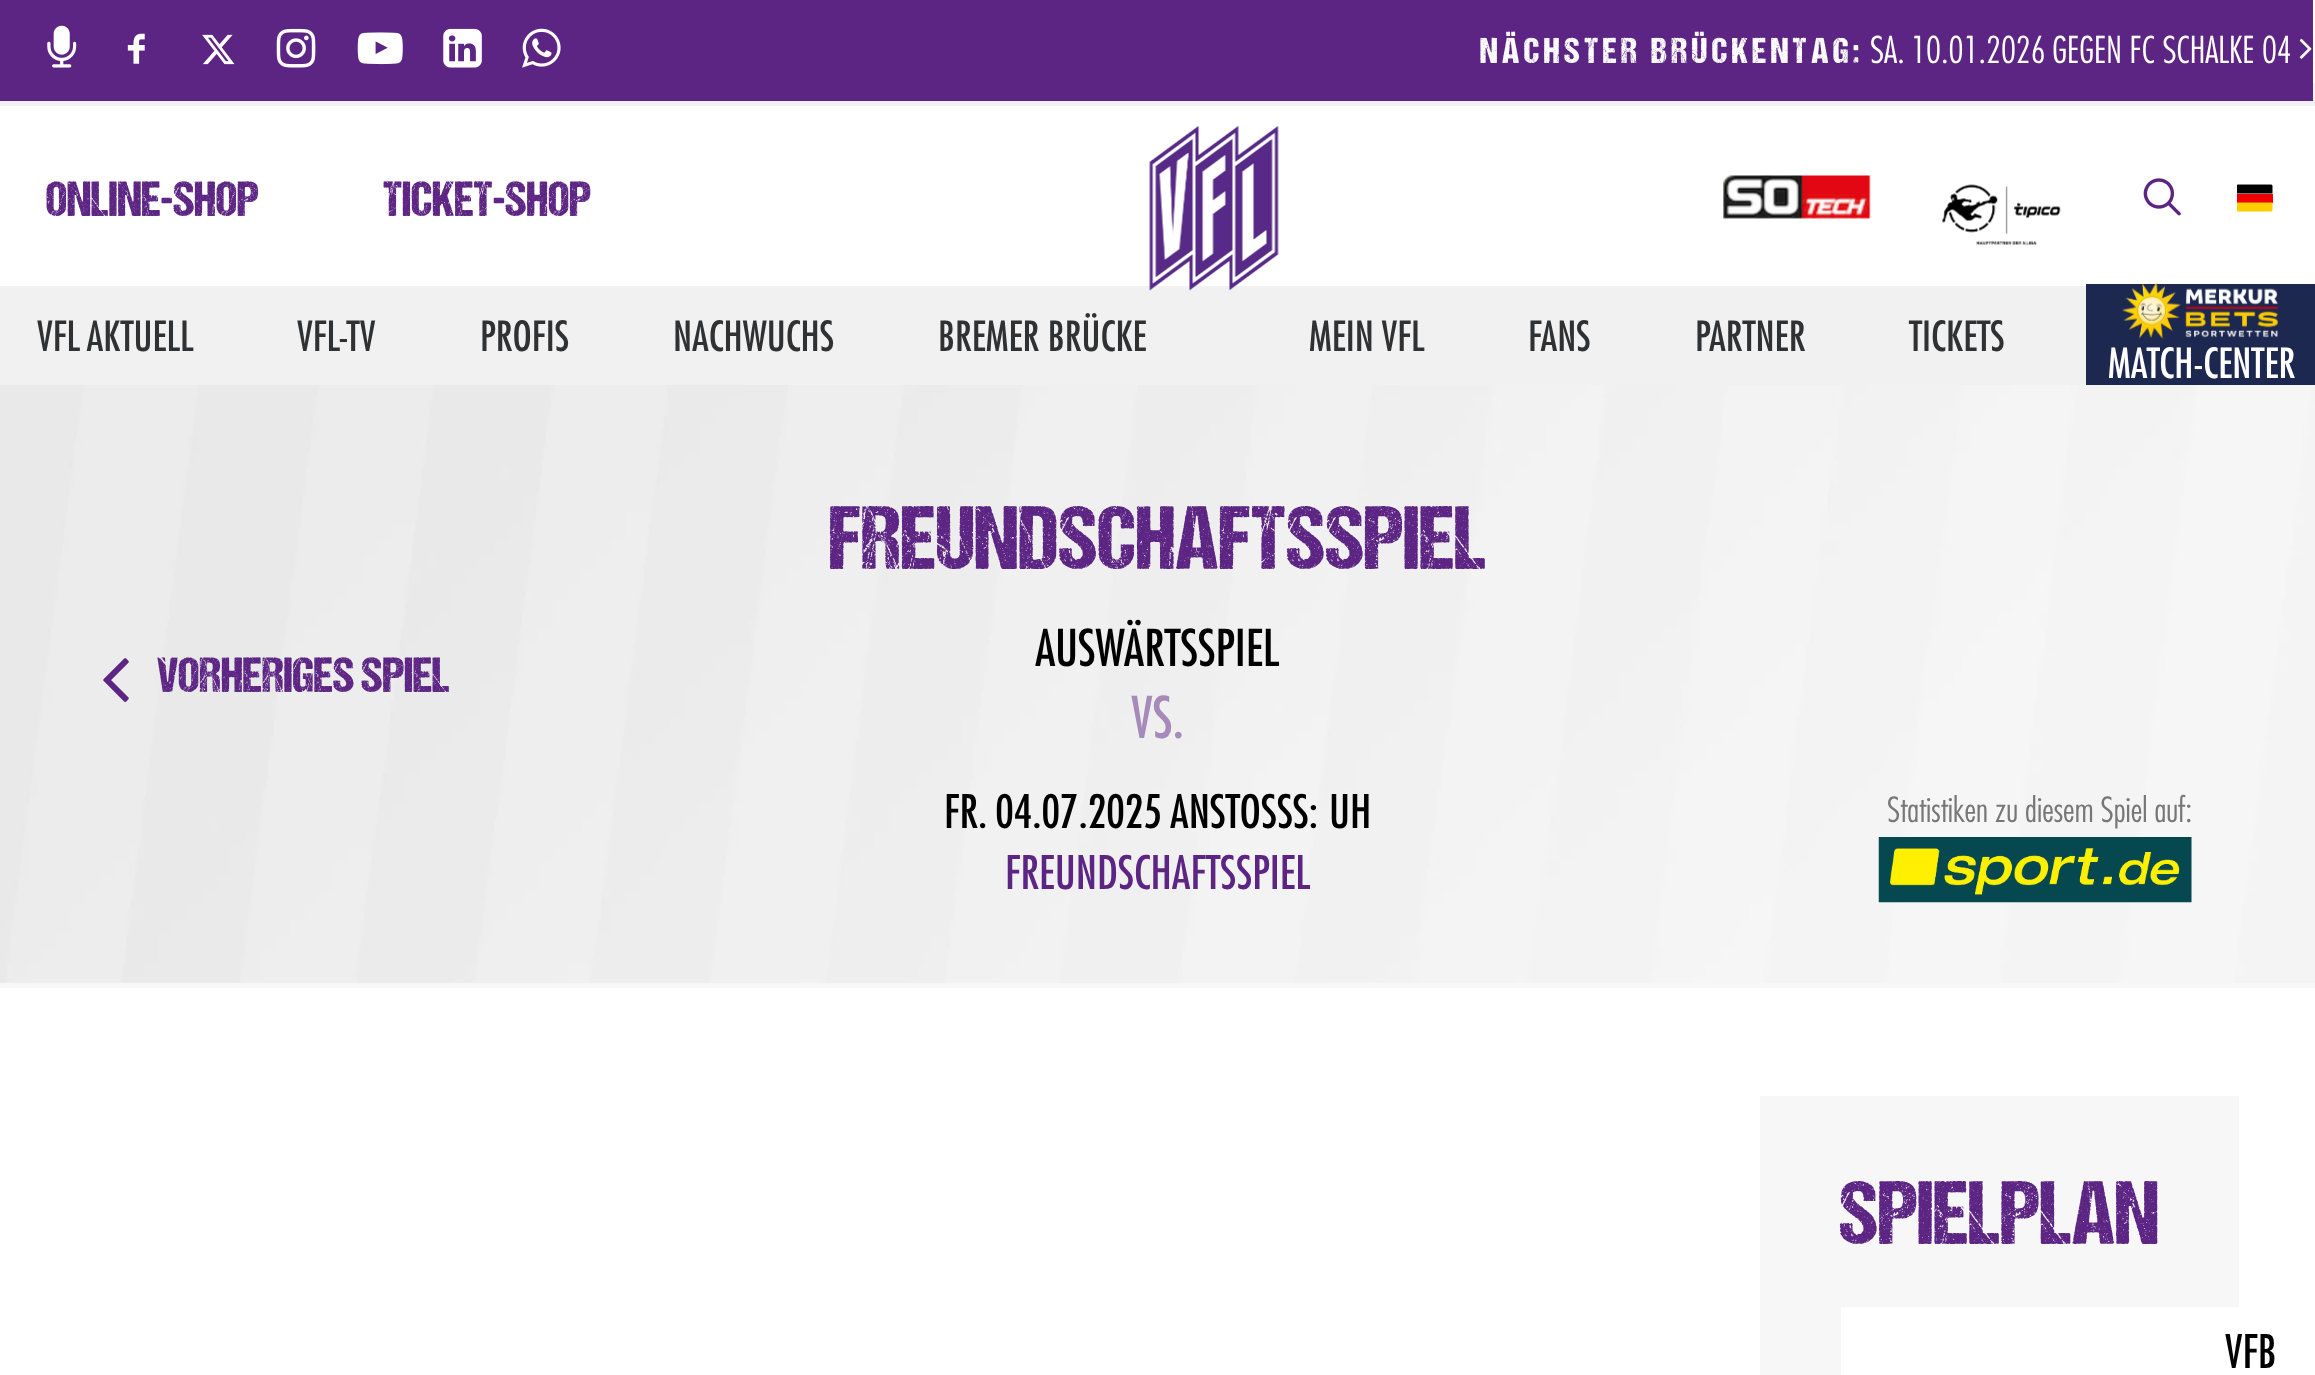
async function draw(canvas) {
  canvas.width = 2315
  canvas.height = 1375
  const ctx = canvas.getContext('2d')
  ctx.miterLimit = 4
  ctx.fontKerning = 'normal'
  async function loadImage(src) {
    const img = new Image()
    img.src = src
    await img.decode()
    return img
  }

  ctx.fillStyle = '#fff'
  ctx.fillRect(0, 0, 2315, 1375)
  ctx.fillStyle = '#f1f1f1'
  ctx.fillRect(0, 83, 2315, 302)
  ctx.fillStyle = '#5c2483'
  ctx.fillRect(0, 0, 2313, 101)
  ctx.drawImage(await loadImage('image0.png'), 47, 25, 30, 43)
  ctx.drawImage(await loadImage('image1.png'), 127, 33, 18, 31)
  ctx.drawImage(await loadImage('image2.png'), 202, 34, 33, 31)
  ctx.drawImage(await loadImage('image3.png'), 276, 28, 40, 40)
  ctx.drawImage(await loadImage('image4.png'), 357, 32, 46, 33)
  ctx.drawImage(await loadImage('image5.png'), 443, 28, 39, 40)
  ctx.drawImage(await loadImage('image6.png'), 522, 28, 39, 40)
  ctx.letterSpacing = '4.5px'
  ctx.font = '36px "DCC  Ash"'
  ctx.fillStyle = '#fff'
  ctx.fillText('NÄCHSTER BRÜCKENTAG:', 1480, 63)
  ctx.letterSpacing = '0px'
  ctx.font = '300 36px "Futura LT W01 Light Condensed"'
  ctx.fillText('SA. 10.01.2026 GEGEN FC SCHALKE 04', 1870, 63)
  ctx.drawImage(await loadImage('image7.png'), 2299, 38, 13, 21)
  ctx.fillRect(0, 106, 2315, 180)
  ctx.font = '49.5px "DCC  Ash"'
  ctx.fillStyle = '#5c2483'
  ctx.fillText('ONLINE-SHOP', 46, 216)
  ctx.fillText('TICKET-SHOP', 383, 216)
  ctx.drawImage(await loadImage('image8.png'), 1723, 175, 148, 44)
  ctx.drawImage(await loadImage('image9.png'), 1942, 184, 119, 61)
  ctx.drawImage(await loadImage('image10.png'), 2143, 178, 38, 38)
  ctx.drawImage(await loadImage('image11.png'), 2237, 184, 36, 28)
  ctx.drawImage(await loadImage('image12.png'), 1149, 126, 130, 165)
  ctx.font = '500 40.5px "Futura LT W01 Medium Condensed"'
  ctx.fillStyle = '#303133'
  ctx.fillText('VFL AKTUELL', 37, 351)
  ctx.fillText('VFL-TV', 297, 351)
  ctx.fillText('PROFIS', 480, 351)
  ctx.fillText('NACHWUCHS', 673, 351)
  ctx.fillText('BREMER BRÜCKE', 938, 351)
  ctx.fillText('MEIN VFL', 1309, 351)
  ctx.fillText('FANS', 1528, 351)
  ctx.fillText('PARTNER', 1695, 351)
  ctx.fillText('TICKETS', 1909, 351)
  ctx.fillStyle = '#1c284f'
  ctx.fillRect(2086, 284, 229, 101)
  ctx.drawImage(await loadImage('image13.png'), 2122, 282, 157, 58)
  ctx.fillStyle = '#fff'
  ctx.fillText('MATCH-CENTER', 2108, 378)
  ctx.fillStyle = '#f7f7f7'
  ctx.fillRect(0, 983, 2315, 5)
  ctx.drawImage(await loadImage('image14.png'), 0, 385, 2315, 598)
  ctx.drawImage(await loadImage('image15.png'), 103, 658, 26, 44)
  ctx.font = '49.5px "DCC  Ash"'
  ctx.fillStyle = '#5c2483'
  ctx.fillText('VORHERIGES SPIEL', 157, 692)
  ctx.font = '90px "DCC  Ash"'
  ctx.fillText('FREUNDSCHAFTSSPIEL', 829, 569)
  ctx.font = '500 49.5px "Futura LT W01 Medium Condensed"'
  ctx.fillStyle = '#000'
  ctx.fillText('AUSWÄRTSSPIEL', 1035, 666)
  ctx.font = '500 56px "Futura LT W01 Medium Condensed"'
  ctx.fillStyle = '#a68ab9'
  ctx.fillText('VS.', 1131, 738)
  ctx.font = '500 45px "Futura LT W01 Medium Condensed"'
  ctx.fillStyle = '#000'
  ctx.fillText('FR. 04.07.2025', 944, 828)
  ctx.fillText('ANSTOSSS:', 1170, 828)
  ctx.fillText('UH', 1329, 828)
  ctx.fillStyle = '#5c2483'
  ctx.fillText('FREUNDSCHAFTSSPIEL', 1005, 889)
  ctx.font = '300 33.75px "Futura LT W01 Light Condensed"'
  ctx.fillStyle = '#777'
  ctx.fillText('Statistiken zu diesem Spiel auf:', 1887, 822)
  ctx.drawImage(await loadImage('image16.png'), 1878, 837, 314, 66)
  ctx.fillStyle = '#f7f7f7'
  ctx.fillRect(1760, 1096, 479, 279)
  ctx.font = '90px "DCC  Ash"'
  ctx.fillStyle = '#5c2483'
  ctx.fillText('SPIELPLAN', 1839, 1244)
  ctx.fillStyle = '#fff'
  ctx.fillRect(1841, 1307, 398, 68)
  ctx.font = '500 45px "Futura LT W01 Medium Condensed"'
  ctx.fillStyle = '#000'
  ctx.fillText('VFB', 2225, 1368)
}

draw(document.querySelector('canvas'))
